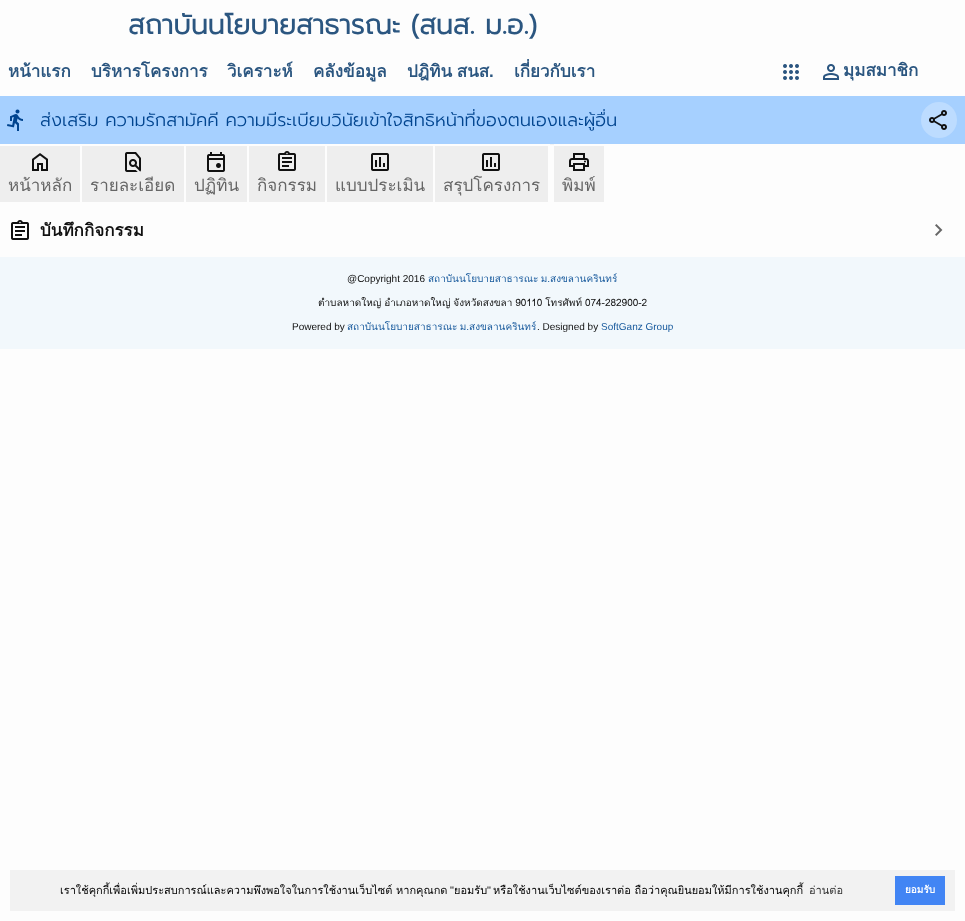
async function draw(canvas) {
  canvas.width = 965
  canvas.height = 921
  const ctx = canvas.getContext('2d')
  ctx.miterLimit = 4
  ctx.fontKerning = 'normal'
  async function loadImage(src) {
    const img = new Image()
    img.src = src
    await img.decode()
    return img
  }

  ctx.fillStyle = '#fdfdfd'
  ctx.fillRect(0, 0, 965, 921)
  ctx.font = 'bold 27.25px Prompt'
  ctx.fillStyle = '#2b5680'
  ctx.fillText('สถาบันนโยบายสาธารณะ (สนส. ม.อ.)', 128, 34)
  ctx.font = 'bold 17px Loma'
  ctx.fillText('หน้าแรก', 8, 77)
  ctx.fillText('บริหารโครงการ', 91, 77)
  ctx.fillText('วิเคราะห์', 227, 77)
  ctx.fillText('คลังข้อมูล', 313, 77)
  ctx.wordSpacing = '-1px'
  ctx.fillText('ปฎิทิน สนส', 407, 77)
  ctx.wordSpacing = '0px'
  ctx.font = 'bold 17px Liberation Sans'
  ctx.fillText('.', 489, 77)
  ctx.font = 'bold 17px Loma'
  ctx.fillText('เกี่ยวกับเรา', 514, 77)
  ctx.drawImage(await loadImage('image0.png'), 783, 64, 16, 16)
  ctx.drawImage(await loadImage('image1.png'), 823, 64, 16, 16)
  ctx.fillText('มุมสมาชิก', 843, 76)
  ctx.fillStyle = '#a6d0ff'
  ctx.fillRect(0, 96, 32, 48)
  ctx.drawImage(await loadImage('image2.png'), 7, 109, 16, 22)
  ctx.fillRect(32, 96, 933, 48)
  ctx.fillStyle = '#bddcff'
  ctx.beginPath()
  ctx.arc(939, 120, 18, 0, 2 * Math.PI)
  ctx.fill()
  ctx.drawImage(await loadImage('image3.png'), 929, 110, 18, 20)
  ctx.font = '300 18px Prompt'
  ctx.fillStyle = '#00448f'
  ctx.fillText('ส่งเสริม ความรักสามัคคี ความมีระเบียบวินัยเข้าใจสิทธิหน้าที่ของตนเองและผู้อื่น', 40, 126)
  ctx.fillStyle = '#eee'
  ctx.fillRect(0, 146, 80, 56)
  ctx.drawImage(await loadImage('image4.png'), 32, 153, 16, 18)
  ctx.font = '17px Loma'
  ctx.fillStyle = '#666'
  ctx.fillText('หน้าหลัก', 8, 191)
  ctx.fillStyle = '#f3f3f3'
  ctx.fillRect(550, 144, 4, 1)
  ctx.fillStyle = '#eee'
  ctx.fillRect(82, 146, 102, 56)
  ctx.drawImage(await loadImage('image5.png'), 125, 152, 16, 20)
  ctx.fillStyle = '#666'
  ctx.fillText('รายละเอียด', 90, 191)
  ctx.fillStyle = '#eee'
  ctx.fillRect(186, 146, 61, 56)
  ctx.drawImage(await loadImage('image6.png'), 207, 152, 18, 20)
  ctx.fillStyle = '#666'
  ctx.fillText('ปฏิทิน', 194, 191)
  ctx.fillStyle = '#eee'
  ctx.fillRect(249, 146, 76, 56)
  ctx.drawImage(await loadImage('image7.png'), 278, 151, 18, 20)
  ctx.fillStyle = '#666'
  ctx.fillText('กิจกรรม', 257, 191)
  ctx.fillStyle = '#eee'
  ctx.fillRect(327, 146, 106, 56)
  ctx.drawImage(await loadImage('image8.png'), 371, 153, 18, 18)
  ctx.fillStyle = '#666'
  ctx.fillText('แบบประเมิน', 335, 191)
  ctx.fillStyle = '#eee'
  ctx.fillRect(435, 146, 113, 56)
  ctx.drawImage(await loadImage('image8.png'), 482, 153, 18, 18)
  ctx.fillStyle = '#666'
  ctx.fillText('สรุปโครงการ', 443, 191)
  ctx.fillStyle = '#eee'
  ctx.fillRect(554, 146, 50, 56)
  ctx.drawImage(await loadImage('image9.png'), 569, 153, 20, 18)
  ctx.fillStyle = '#666'
  ctx.fillText('พิมพ์', 562, 191)
  ctx.drawImage(await loadImage('image10.png'), 11, 220, 18, 20)
  ctx.font = 'bold 17px Loma'
  ctx.fillStyle = '#111'
  ctx.fillText('บันทึกกิจกรรม', 40, 236)
  ctx.drawImage(await loadImage('image11.png'), 935, 224, 8, 12)
  ctx.fillStyle = '#f2f8fc'
  ctx.fillRect(0, 257, 965, 92)
  ctx.font = '10px Liberation Sans'
  ctx.fillStyle = '#111'
  ctx.fillText('@Copyright 2016', 347, 282)
  ctx.wordSpacing = '-1px'
  ctx.font = '10px Loma'
  ctx.fillStyle = '#17599c'
  ctx.fillText('สถาบันนโยบายสาธารณะ ม.สงขลานครินทร์', 428, 282)
  ctx.wordSpacing = '-0.5px'
  ctx.fillStyle = '#111'
  ctx.fillText('ตำบลหาดใหญ่ อำเภอหาดใหญ่ จังหวัดสงขลา 90110 โทรศัพท์ 074-282900-2', 318, 306)
  ctx.wordSpacing = '0px'
  ctx.font = '10px Liberation Sans'
  ctx.fillText('Powered by', 292, 330)
  ctx.wordSpacing = '-1px'
  ctx.font = '10px Loma'
  ctx.fillStyle = '#17599c'
  ctx.fillText('สถาบันนโยบายสาธารณะ ม.สงขลานครินทร์', 347, 330)
  ctx.wordSpacing = '0px'
  ctx.font = '10px Liberation Sans'
  ctx.fillStyle = '#111'
  ctx.fillText('. Designed by', 537, 330)
  ctx.fillStyle = '#17599c'
  ctx.fillText('SoftGanz Group', 601, 330)
  ctx.fillStyle = '#f2f2f2'
  ctx.fillRect(10, 870, 945, 41)
  ctx.font = '11px Loma'
  ctx.fillStyle = '#000'
  ctx.fillText('เราใช้คุกกี้เพื่อเพิ่มประสบการณ์และความพึงพอใจในการใช้งานเว็บไซต์ หากคุณกด', 60, 894)
  ctx.font = '11px Liberation Sans'
  ctx.fillText('"', 450, 894)
  ctx.font = '11px Loma'
  ctx.fillText('ยอมรับ', 454, 894)
  ctx.font = '11px Liberation Sans'
  ctx.fillText('"', 487, 894)
  ctx.font = '11px Loma'
  ctx.fillText('หรือใช้งานเว็บไซต์ของเราต่อ ถือว่าคุณยินยอมให้มีการใช้งานคุกกี้', 493, 894)
  ctx.fillStyle = '#303030'
  ctx.fillText('อ่านต่อ', 809, 894)
  ctx.fillStyle = '#4285f4'
  ctx.fillRect(895, 876, 50, 29)
  ctx.font = 'bold 10px Loma'
  ctx.fillStyle = '#fff'
  ctx.fillText('ยอมรับ', 905, 893)
}

draw(document.querySelector('canvas'))
